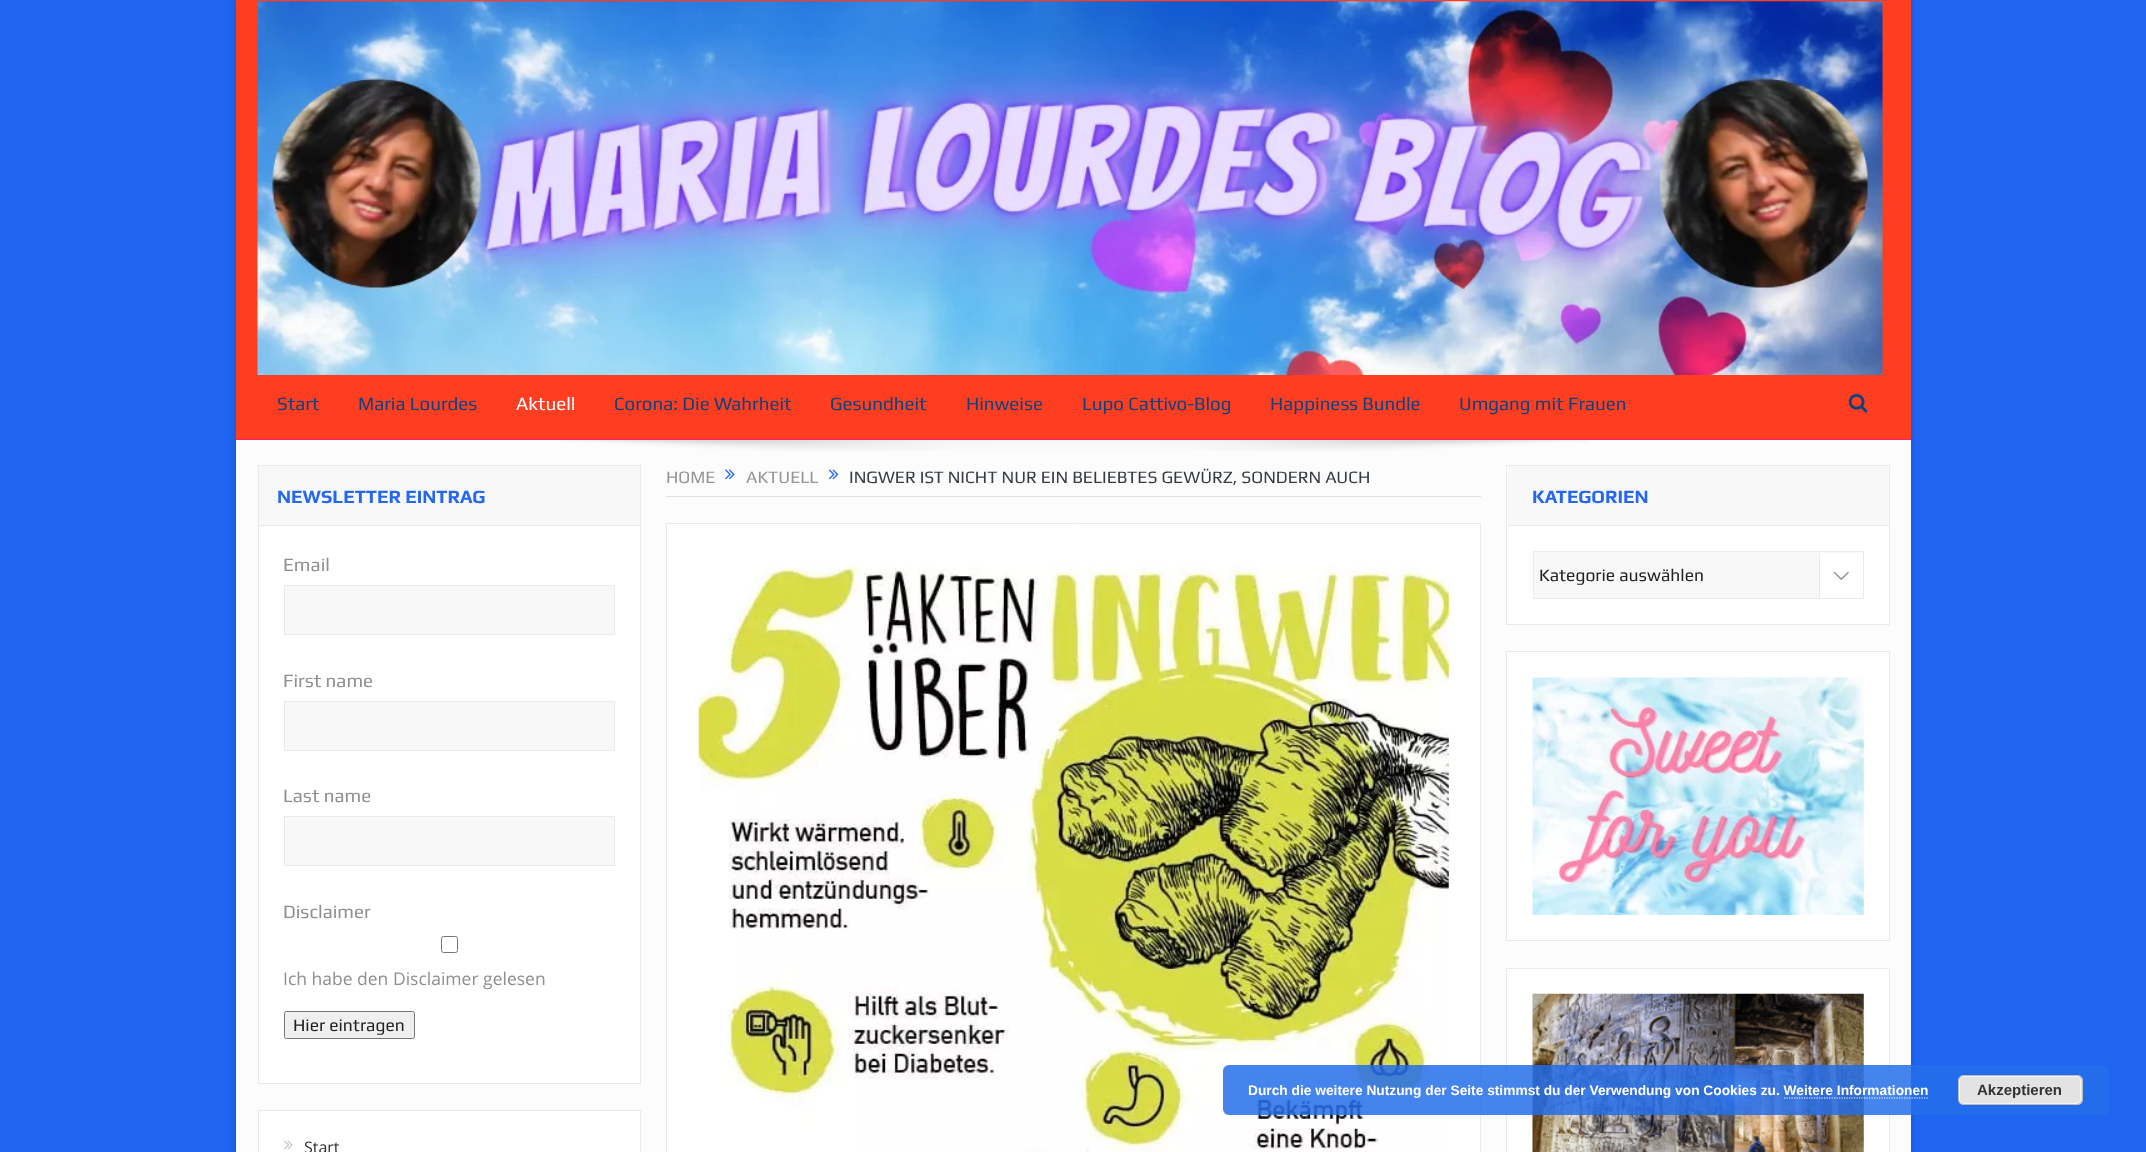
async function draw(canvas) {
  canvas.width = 2146
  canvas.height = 1152
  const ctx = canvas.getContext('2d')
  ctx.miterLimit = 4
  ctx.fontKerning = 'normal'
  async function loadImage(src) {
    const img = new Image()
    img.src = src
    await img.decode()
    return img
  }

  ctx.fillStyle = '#1f65f2'
  ctx.fillRect(0, 0, 2146, 1152)
  ctx.fillStyle = '#00000033'
  ctx.filter = 'blur(3px)'
  ctx.beginPath()
  ctx.rect(236, 0, 1675, 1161)
  ctx.fill()
  ctx.filter = 'none'
  ctx.fillStyle = '#fcfcfc'
  ctx.fillRect(236, 440, 1675, 712)
  ctx.fillStyle = '#ff3e21'
  ctx.fillRect(236, 0, 1675, 439)
  ctx.drawImage(await loadImage('image0.png'), 257, 1, 1626, 374)
  ctx.fillStyle = '#fc206a'
  ctx.fillRect(236, 439, 1675, 1)
  ctx.font = '18.75px Play'
  ctx.fillStyle = '#0a447f'
  ctx.fillText('Start', 277, 410)
  ctx.fillText('Maria Lourdes', 358, 410)
  ctx.fillStyle = '#fff'
  ctx.fillText('Aktuell', 516, 410)
  ctx.fillStyle = '#0a447f'
  ctx.fillText('Corona: Die Wahrheit', 614, 410)
  ctx.fillText('Gesundheit', 830, 410)
  ctx.fillText('Hinweise', 966, 410)
  ctx.fillText('Lupo Cattivo-Blog', 1082, 410)
  ctx.fillText('Happiness Bundle', 1270, 410)
  ctx.fillText('Umgang mit Frauen', 1459, 410)
  ctx.drawImage(await loadImage('image1.png'), 1848, 393, 20, 20)
  ctx.drawImage(await loadImage('image2.png'), 562, 440, 1025, 11)
  ctx.fillStyle = '#e0e0e0'
  ctx.fillRect(666, 496, 815, 1)
  ctx.font = '17.5px Play'
  ctx.fillStyle = '#959595'
  ctx.fillText('HOME', 666, 483)
  ctx.drawImage(await loadImage('image3.png'), 725, 469, 10, 11)
  ctx.fillText('AKTUELL', 746, 483)
  ctx.drawImage(await loadImage('image4.png'), 828, 469, 11, 11)
  ctx.fillStyle = '#373c43'
  ctx.fillText('INGWER IST NICHT NUR EIN BELIEBTES GEWÜRZ, SONDERN AUCH', 849, 483)
  ctx.fillStyle = '#fff'
  ctx.beginPath()
  ctx.rect(666.5, 523.5, 814, 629)
  ctx.fill()
  ctx.strokeStyle = '#eaeaea'
  ctx.stroke()
  ctx.drawImage(await loadImage('image5.png'), 698, 564, 751, 588)
  ctx.fillRect(259, 526, 381, 557)
  ctx.strokeRect(258.5, 465.5, 382, 618)
  ctx.fillStyle = '#f8f8f8'
  ctx.fillRect(259, 466, 381, 59)
  ctx.fillStyle = '#eaeaea'
  ctx.fillRect(259, 525, 381, 1)
  ctx.font = 'bold 18.75px Play'
  ctx.fillStyle = '#2568ed'
  ctx.fillText('NEWSLETTER EINTRAG', 277, 503)
  ctx.font = '18.75px Play'
  ctx.fillStyle = '#8e8e8e'
  ctx.fillText('Email', 283, 571)
  ctx.fillStyle = '#f8f8f8'
  ctx.beginPath()
  ctx.rect(284.5, 585.5, 330, 49)
  ctx.fill()
  ctx.stroke()
  ctx.fillStyle = '#8e8e8e'
  ctx.fillText('First name', 283, 687)
  ctx.fillStyle = '#f8f8f8'
  ctx.beginPath()
  ctx.rect(284.5, 701.5, 330, 49)
  ctx.fill()
  ctx.stroke()
  ctx.fillStyle = '#8e8e8e'
  ctx.fillText('Last name', 283, 802)
  ctx.fillStyle = '#f8f8f8'
  ctx.beginPath()
  ctx.rect(284.5, 816.5, 330, 49)
  ctx.fill()
  ctx.stroke()
  ctx.fillStyle = '#8e8e8e'
  ctx.fillText('Disclaimer', 283, 918)
  ctx.beginPath()
  ctx.roundRect(441.5, 936.5, 16, 16, 2)
  ctx.strokeStyle = '#767676'
  ctx.stroke()
  ctx.font = '17.5px Open Sans'
  ctx.fillText('Ich habe den Disclaimer gelesen', 283, 985)
  ctx.fillStyle = '#efefef'
  ctx.beginPath()
  ctx.roundRect(284.5, 1011.5, 130, 27, 2)
  ctx.fill()
  ctx.stroke()
  ctx.font = '17.5px Play'
  ctx.fillStyle = '#222'
  ctx.fillText('Hier eintragen', 293, 1031)
  ctx.fillStyle = '#fff'
  ctx.beginPath()
  ctx.rect(258.5, 1110.5, 382, 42)
  ctx.fill()
  ctx.strokeStyle = '#eaeaea'
  ctx.stroke()
  ctx.drawImage(await loadImage('image6.png'), 284, 1140, 9, 10)
  ctx.font = '16px Open Sans'
  ctx.fillStyle = '#2d2d2d'
  ctx.fillText('Start', 304, 1153)
  ctx.fillStyle = '#fff'
  ctx.beginPath()
  ctx.rect(1506.5, 465.5, 383, 159)
  ctx.fill()
  ctx.stroke()
  ctx.fillStyle = '#f8f8f8'
  ctx.fillRect(1508, 466, 381, 59)
  ctx.fillStyle = '#eaeaea'
  ctx.fillRect(1508, 525, 381, 1)
  ctx.font = 'bold 18.75px Play'
  ctx.fillStyle = '#2568ed'
  ctx.fillText('KATEGORIEN', 1532, 503)
  ctx.fillStyle = '#f8f8f8'
  ctx.beginPath()
  ctx.rect(1533.5, 551.5, 330, 47)
  ctx.fill()
  ctx.stroke()
  ctx.font = '17.5px Play'
  ctx.fillStyle = '#222'
  ctx.fillText('Kategorie auswählen', 1539, 581)
  ctx.fillStyle = '#fff'
  ctx.fillRect(1820, 553, 43, 45)
  ctx.fillStyle = '#eaeaea'
  ctx.fillRect(1819, 553, 1, 45)
  ctx.drawImage(await loadImage('image7.png'), 1833, 571, 16, 9)
  ctx.fillStyle = '#fff'
  ctx.beginPath()
  ctx.rect(1506.5, 651.5, 383, 289)
  ctx.fill()
  ctx.stroke()
  ctx.drawImage(await loadImage('image8.png'), 1532, 677, 332, 238)
  ctx.beginPath()
  ctx.rect(1506.5, 968.5, 383, 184)
  ctx.fill()
  ctx.stroke()
  ctx.drawImage(await loadImage('image9.png'), 1532, 993, 332, 159)
  ctx.fillStyle = '#256dead9'
  ctx.beginPath()
  ctx.roundRect(1223, 1065, 886, 50, 6)
  ctx.fill()
  ctx.font = 'bold 13.75px Liberation Sans'
  ctx.fillStyle = '#fff'
  ctx.fillText('Durch die weitere Nutzung der Seite stimmst du der Verwendung von Cookies zu. Weitere Informationen', 1248, 1095)
  ctx.fillStyle = '#e3e3e3'
  ctx.beginPath()
  ctx.roundRect(1958, 1075, 125, 30, 6)
  ctx.fill()
  ctx.beginPath()
  ctx.roundRect(1959.5, 1076.5, 121, 27, 4.5)
  ctx.strokeStyle = '#f6f6f6'
  ctx.stroke()
  ctx.beginPath()
  ctx.roundRect(1958.5, 1075.5, 124, 29, 5.5)
  ctx.strokeStyle = '#bbb'
  ctx.stroke()
  ctx.font = 'bold 15px Liberation Sans'
  ctx.fillStyle = '#333'
  ctx.fillText('Akzeptieren', 1977, 1095)
  ctx.beginPath()
  ctx.moveTo(1784, 1098)
  ctx.lineTo(1929, 1098)
  ctx.strokeStyle = '#fff'
  ctx.lineWidth = 1.2
  ctx.setLineDash([1.25, 1.25])
  ctx.stroke()
}

draw(document.querySelector('canvas'))
